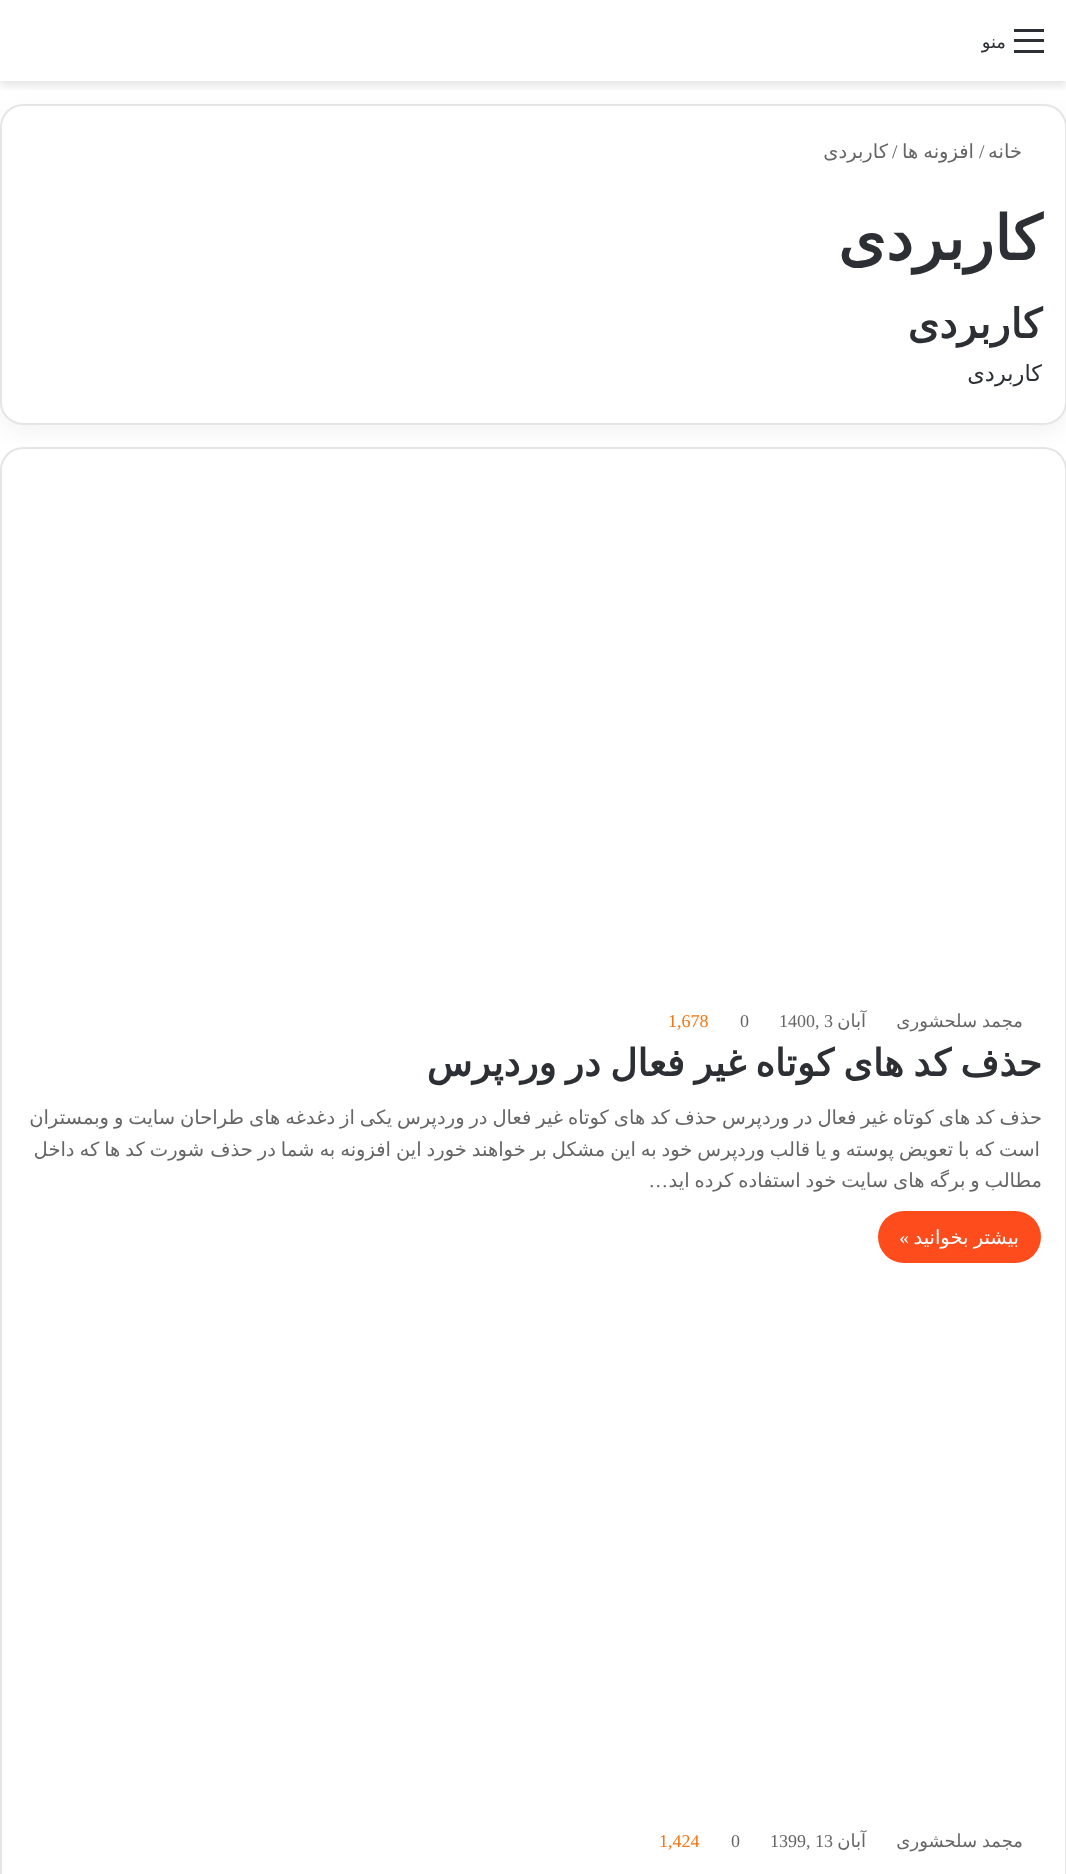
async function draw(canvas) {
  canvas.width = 1066
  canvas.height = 1874
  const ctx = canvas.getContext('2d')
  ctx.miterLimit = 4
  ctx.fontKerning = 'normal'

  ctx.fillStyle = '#fff'
  ctx.fillRect(0, 0, 1066, 1874)
  ctx.save()
  ctx.beginPath()
  ctx.rect(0, 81, 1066, 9)
  ctx.clip()
  ctx.fillStyle = '#0000001a'
  ctx.filter = 'blur(5px)'
  ctx.beginPath()
  ctx.rect(0, 5, 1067, 81)
  ctx.fill()
  ctx.filter = 'none'
  ctx.restore()
  ctx.fillStyle = '#2c2f34'
  ctx.fillRect(1014, 39, 30, 3)
  ctx.fillRect(1014, 29, 30, 3)
  ctx.fillRect(1014, 50, 30, 3)
  ctx.direction = 'rtl'
  ctx.font = '18px DejaVu Sans'
  ctx.fillText('منو', 1006, 48)
  ctx.fillStyle = '#0000000d'
  ctx.filter = 'blur(11px)'
  ctx.beginPath()
  ctx.roundRect(0, 111, 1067, 321, 23)
  ctx.fill()
  ctx.filter = 'none'
  ctx.fillStyle = '#fff'
  ctx.beginPath()
  ctx.roundRect(0, 104, 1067, 321, 23)
  ctx.fill()
  ctx.beginPath()
  ctx.roundRect(1, 105, 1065, 319, 22)
  ctx.strokeStyle = '#0000001a'
  ctx.lineWidth = 2
  ctx.stroke()
  ctx.font = '19.5px DejaVu Sans'
  ctx.fillStyle = '#666'
  ctx.fillText('خانه', 1022, 158)
  ctx.direction = 'ltr'
  ctx.font = '19.5px Liberation Serif'
  ctx.fillText('/', 979, 158)
  ctx.wordSpacing = '-1.3px'
  ctx.direction = 'rtl'
  ctx.font = '19.5px DejaVu Sans'
  ctx.fillText('افزونه ها', 974, 158)
  ctx.wordSpacing = '0px'
  ctx.direction = 'ltr'
  ctx.font = '19.5px Liberation Serif'
  ctx.fillText('/', 892, 158)
  ctx.direction = 'rtl'
  ctx.font = '19.5px DejaVu Sans'
  ctx.fillText('کاربردی', 888, 158)
  ctx.font = 'bold 61.5px DejaVu Sans'
  ctx.fillStyle = '#2c2f34'
  ctx.fillText('کاربردی', 1042, 260)
  ctx.font = 'bold 40.5px DejaVu Sans'
  ctx.fillText('کاربردی', 1042, 338)
  ctx.font = '22.5px DejaVu Sans'
  ctx.fillText('کاربردی', 1042, 381)
  ctx.beginPath()
  ctx.roundRect(1, 448, 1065, 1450, 22)
  ctx.strokeStyle = '#e5e5e5'
  ctx.stroke()
  ctx.wordSpacing = '-1px'
  ctx.font = '18px DejaVu Sans'
  ctx.fillStyle = '#666'
  ctx.fillText('مجمد سلحشوری', 1023, 1027)
  ctx.wordSpacing = '0px'
  ctx.fillText('آبان', 866, 1027)
  ctx.direction = 'ltr'
  ctx.font = '18px Liberation Serif'
  ctx.fillText('1400, 3', 779, 1027)
  ctx.fillText('0', 740, 1027)
  ctx.fillStyle = '#f47512'
  ctx.fillText('1,678', 668, 1027)
  ctx.wordSpacing = '-2.5px'
  ctx.direction = 'rtl'
  ctx.font = 'bold 37.5px DejaVu Sans'
  ctx.fillStyle = '#2c2f34'
  ctx.fillText('حذف کد های کوتاه غیر فعال در وردپرس', 1042, 1076)
  ctx.wordSpacing = '-1.3px'
  ctx.font = '19.5px DejaVu Sans'
  ctx.fillStyle = '#666'
  ctx.fillText('حذف کد های کوتاه غیر فعال در وردپرس حذف کد های کوتاه غیر فعال در وردپرس یکی از دغدغه های طراحان سایت و وبمستران', 1042, 1124)
  ctx.wordSpacing = '-1.25px'
  ctx.fillText('است که با تعویض پوسته و یا قالب وردپرس خود به این مشکل بر خواهند خورد این افزونه به شما در حذف', 1040, 1156)
  ctx.fillText('شورت کد ها که داخل', 204, 1156)
  ctx.wordSpacing = '-1.3px'
  ctx.fillText('مطالب و برگه های سایت خود استفاده کرده اید', 1042, 1187)
  ctx.wordSpacing = '0px'
  ctx.font = '19.5px Liberation Serif'
  ctx.fillText('…', 668, 1187)
  ctx.fillStyle = '#fe4c1c'
  ctx.beginPath()
  ctx.roundRect(878, 1211, 163, 52, 26)
  ctx.fill()
  ctx.wordSpacing = '-1px'
  ctx.font = '19.5px DejaVu Sans'
  ctx.fillStyle = '#fff'
  ctx.fillText('بیشتر بخوانید', 1019, 1244)
  ctx.wordSpacing = '0px'
  ctx.font = '19.5px Liberation Serif'
  ctx.fillText('»', 909, 1244)
  ctx.wordSpacing = '-1px'
  ctx.font = '18px DejaVu Sans'
  ctx.fillStyle = '#666'
  ctx.fillText('مجمد سلحشوری', 1023, 1847)
  ctx.wordSpacing = '0px'
  ctx.fillText('آبان', 866, 1847)
  ctx.direction = 'ltr'
  ctx.font = '18px Liberation Serif'
  ctx.fillText('1399, 13', 770, 1847)
  ctx.fillText('0', 731, 1847)
  ctx.fillStyle = '#f47512'
  ctx.fillText('1,424', 659, 1847)
}

draw(document.querySelector('canvas'))
